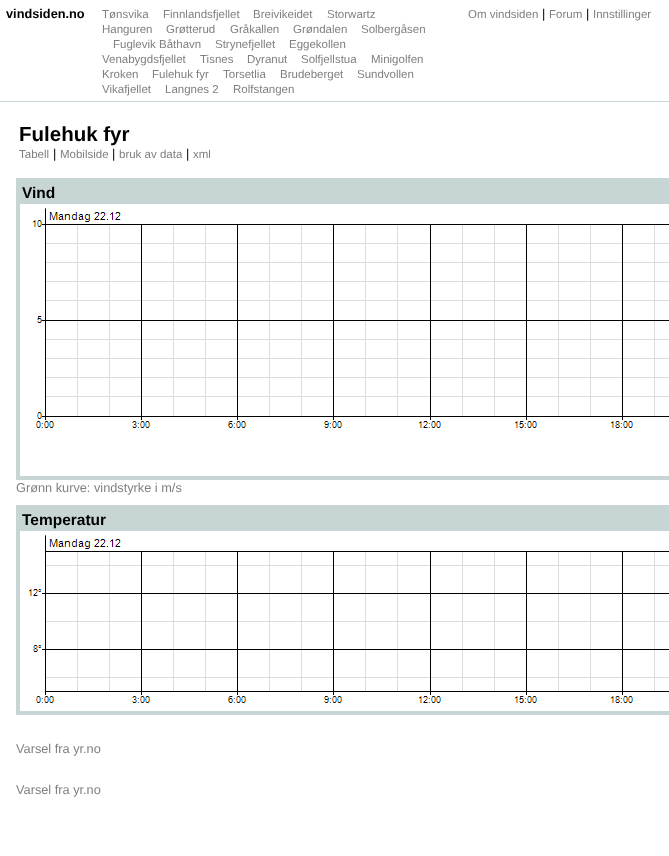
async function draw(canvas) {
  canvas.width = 669
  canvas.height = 856
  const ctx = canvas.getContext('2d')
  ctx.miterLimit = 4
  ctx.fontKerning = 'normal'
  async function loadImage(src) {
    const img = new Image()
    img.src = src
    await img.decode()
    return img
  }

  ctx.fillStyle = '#fff'
  ctx.fillRect(0, 0, 669, 856)
  ctx.fillStyle = '#c7d5d5'
  ctx.fillRect(0, 101, 669, 1)
  ctx.font = 'bold 12.75px Liberation Sans'
  ctx.fillStyle = '#000'
  ctx.fillText('vindsiden.no', 6, 18)
  ctx.font = '11.5px Liberation Sans'
  ctx.fillStyle = '#808080'
  ctx.fillText('Tønsvika', 102, 18)
  ctx.fillText('Finnlandsfjellet', 163, 18)
  ctx.fillText('Breivikeidet', 253, 18)
  ctx.fillText('Storwartz', 327, 18)
  ctx.fillText('Hanguren', 102, 33)
  ctx.fillText('Grøtterud', 166, 33)
  ctx.fillText('Gråkallen', 230, 33)
  ctx.fillText('Grøndalen', 293, 33)
  ctx.fillText('Solbergåsen', 361, 33)
  ctx.fillText('Fuglevik Båthavn', 113, 48)
  ctx.fillText('Strynefjellet', 215, 48)
  ctx.fillText('Eggekollen', 289, 48)
  ctx.fillText('Venabygdsfjellet', 102, 63)
  ctx.fillText('Tisnes', 200, 63)
  ctx.fillText('Dyranut', 247, 63)
  ctx.fillText('Solfjellstua', 301, 63)
  ctx.fillText('Minigolfen', 371, 63)
  ctx.fillText('Kroken', 102, 78)
  ctx.fillText('Fulehuk fyr', 152, 78)
  ctx.fillText('Torsetlia', 223, 78)
  ctx.fillText('Brudeberget', 280, 78)
  ctx.fillText('Sundvollen', 357, 78)
  ctx.fillText('Vikafjellet', 102, 93)
  ctx.fillText('Langnes 2', 165, 93)
  ctx.fillText('Rolfstangen', 233, 93)
  ctx.fillText('Om vindsiden', 468, 18)
  ctx.font = '12.75px Liberation Sans'
  ctx.fillStyle = '#000'
  ctx.fillText('|', 542, 18)
  ctx.font = '11.5px Liberation Sans'
  ctx.fillStyle = '#808080'
  ctx.fillText('Forum', 549, 18)
  ctx.font = '12.75px Liberation Sans'
  ctx.fillStyle = '#000'
  ctx.fillText('|', 586, 18)
  ctx.font = '11.5px Liberation Sans'
  ctx.fillStyle = '#808080'
  ctx.fillText('Innstillinger', 593, 18)
  ctx.font = 'bold 20.5px Liberation Sans'
  ctx.fillStyle = '#000'
  ctx.fillText('Fulehuk fyr', 19, 141)
  ctx.font = '11.5px Liberation Sans'
  ctx.fillStyle = '#808080'
  ctx.fillText('Tabell', 19, 158)
  ctx.font = '12.75px Liberation Sans'
  ctx.fillStyle = '#000'
  ctx.fillText('|', 53, 158)
  ctx.font = '11.5px Liberation Sans'
  ctx.fillStyle = '#808080'
  ctx.fillText('Mobilside', 60, 158)
  ctx.font = '12.75px Liberation Sans'
  ctx.fillStyle = '#000'
  ctx.fillText('|', 112, 158)
  ctx.font = '11.5px Liberation Sans'
  ctx.fillStyle = '#808080'
  ctx.fillText('bruk av data', 119, 158)
  ctx.font = '12.75px Liberation Sans'
  ctx.fillStyle = '#000'
  ctx.fillText('|', 186, 158)
  ctx.font = '11.5px Liberation Sans'
  ctx.fillStyle = '#808080'
  ctx.fillText('xml', 193, 158)
  ctx.strokeStyle = '#c7d5d5'
  ctx.lineWidth = 4
  ctx.strokeRect(18, 180, 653, 298)
  ctx.fillStyle = '#c7d5d5'
  ctx.fillRect(20, 182, 649, 22)
  ctx.font = 'bold 15.5px Liberation Sans'
  ctx.fillStyle = '#000'
  ctx.fillText('Vind', 22, 198)
  ctx.drawImage(await loadImage('image0.png'), 32, 208, 637, 220)
  ctx.font = '12.75px Liberation Sans'
  ctx.fillStyle = '#808080'
  ctx.fillText('Grønn kurve: vindstyrke i m/s', 16, 492)
  ctx.strokeRect(18, 507, 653, 206)
  ctx.fillStyle = '#c7d5d5'
  ctx.fillRect(20, 509, 649, 22)
  ctx.font = 'bold 15.5px Liberation Sans'
  ctx.fillStyle = '#000'
  ctx.fillText('Temperatur', 22, 525)
  ctx.drawImage(await loadImage('image1.png'), 28, 535, 641, 168)
  ctx.font = '12.75px Liberation Sans'
  ctx.fillStyle = '#808080'
  ctx.fillText('Varsel fra yr.no', 16, 753)
  ctx.fillText('Varsel fra yr.no', 16, 794)
}

draw(document.querySelector('canvas'))
